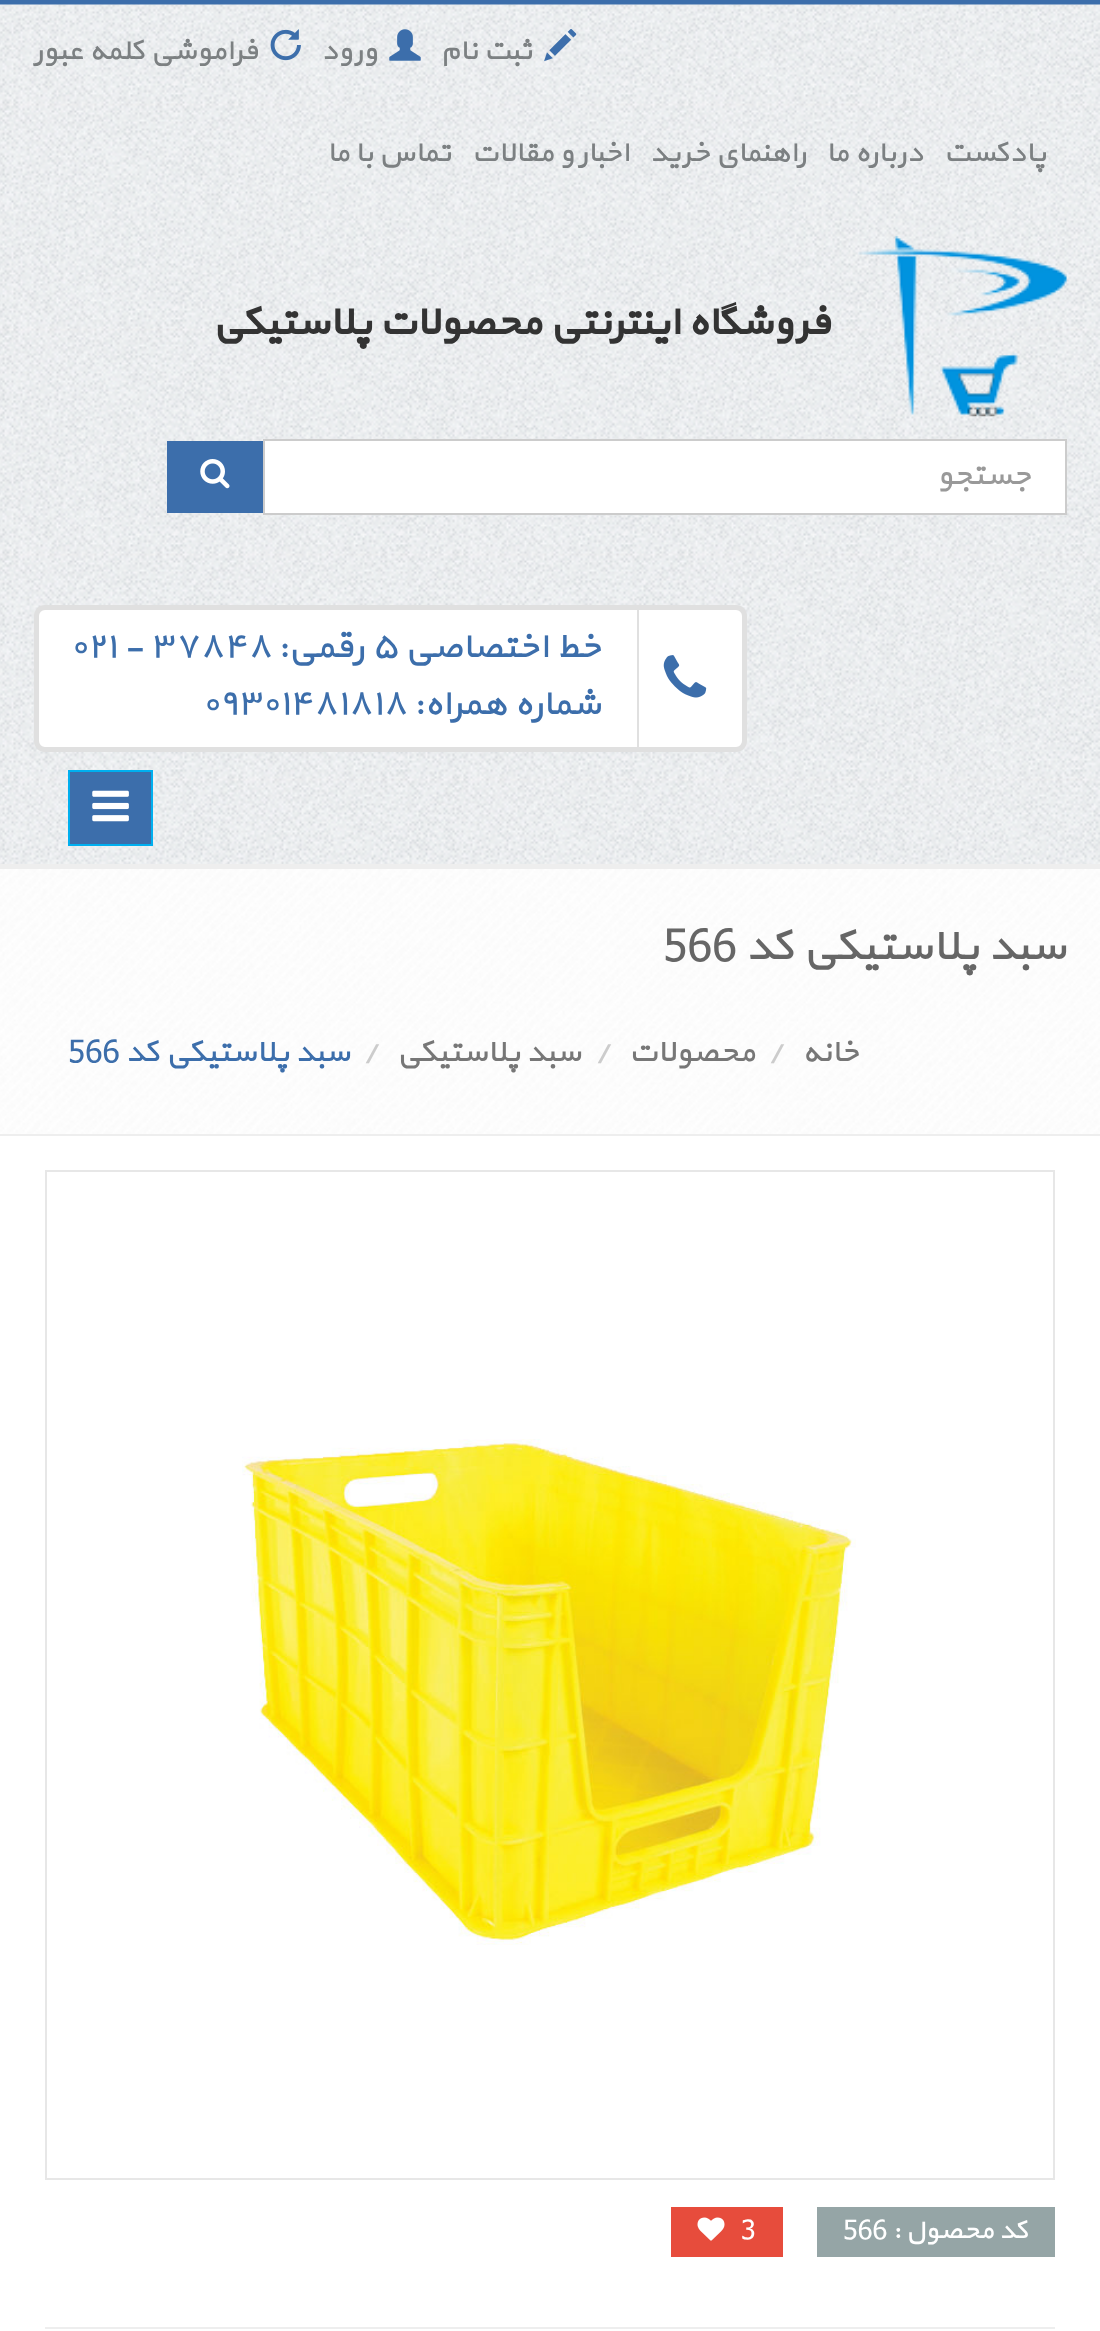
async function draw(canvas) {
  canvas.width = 1100
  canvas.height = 2331
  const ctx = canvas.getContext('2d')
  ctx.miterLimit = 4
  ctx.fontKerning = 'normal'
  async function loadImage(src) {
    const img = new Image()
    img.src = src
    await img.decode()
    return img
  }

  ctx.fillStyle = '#3c6eab'
  ctx.fillRect(0, 0, 1100, 2331)
  ctx.drawImage(await loadImage('image0.png'), 0, 4, 1100, 860)
  ctx.fillStyle = '#eee'
  ctx.fillRect(0, 864, 1100, 5)
  ctx.drawImage(await loadImage('image1.png'), 544, 29, 33, 33)
  ctx.direction = 'rtl'
  ctx.font = '29.25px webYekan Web'
  ctx.fillStyle = '#7c8082'
  ctx.fillText('ثبت نام', 532, 59)
  ctx.drawImage(await loadImage('image2.png'), 389, 29, 32, 32)
  ctx.fillText('ورود', 377, 59)
  ctx.drawImage(await loadImage('image3.png'), 270, 29, 31, 32)
  ctx.fillText('فراموشی کلمه عبور', 258, 59)
  ctx.fillText('پادکست', 1046, 161)
  ctx.fillText('درباره ما', 923, 161)
  ctx.fillText('راهنمای خرید', 806, 161)
  ctx.fillText('اخبار و مقالات', 629, 161)
  ctx.fillText('تماس با ما', 451, 161)
  ctx.drawImage(await loadImage('image4.png'), 858, 236, 209, 181)
  ctx.font = 'bold 40.5px webYekan Web'
  ctx.fillStyle = '#333'
  ctx.fillText('فروشگاه اینترنتی محصولات پلاستیکی', 830, 334)
  ctx.fillStyle = '#fff'
  ctx.beginPath()
  ctx.rect(264, 440, 802, 74)
  ctx.fill()
  ctx.strokeStyle = '#ccc'
  ctx.lineWidth = 2
  ctx.stroke()
  ctx.font = '31.5px webYekan Web'
  ctx.fillStyle = '#999'
  ctx.fillText('جستجو', 1031, 484)
  ctx.fillStyle = '#3c6eab'
  ctx.fillRect(167, 441, 96, 72)
  ctx.drawImage(await loadImage('image5.png'), 200, 459, 30, 30)
  ctx.fillStyle = '#fff'
  ctx.beginPath()
  ctx.roundRect(36.5, 607.5, 708, 142, 8.5)
  ctx.fill()
  ctx.strokeStyle = '#e0e0e0'
  ctx.lineWidth = 5
  ctx.stroke()
  ctx.fillStyle = '#e0e0e0'
  ctx.fillRect(637, 610, 2, 137)
  ctx.font = '36px webYekan Web'
  ctx.fillStyle = '#3c6eab'
  ctx.fillText('خط اختصاصی', 601, 657)
  ctx.direction = 'ltr'
  ctx.fillText('۵', 371, 657)
  ctx.direction = 'rtl'
  ctx.fillText('رقمی:', 364, 657)
  ctx.direction = 'ltr'
  ctx.fillText('۰۲۱ - ۳۷۸۴۸', 70, 657)
  ctx.drawImage(await loadImage('image6.png'), 663, 655, 44, 43)
  ctx.direction = 'rtl'
  ctx.fillText('شماره همراه:', 601, 714)
  ctx.direction = 'ltr'
  ctx.fillText('۰۹۳۰۱۴۸۱۸۱۸', 202, 714)
  ctx.beginPath()
  ctx.rect(69, 771, 83, 74)
  ctx.fill()
  ctx.strokeStyle = '#00afef'
  ctx.lineWidth = 2
  ctx.stroke()
  ctx.drawImage(await loadImage('image7.png'), 92, 790, 37, 32)
  ctx.drawImage(await loadImage('image8.png'), 0, 869, 1100, 265)
  ctx.fillStyle = '#eee'
  ctx.fillRect(0, 1134, 1100, 2)
  ctx.direction = 'rtl'
  ctx.font = '45px webYekan Web'
  ctx.fillStyle = '#666'
  ctx.fillText('سبد پلاستیکی کد', 1066, 959)
  ctx.direction = 'ltr'
  ctx.fillText('566', 663, 959)
  ctx.direction = 'rtl'
  ctx.font = '31.5px webYekan Web'
  ctx.fillStyle = '#777'
  ctx.fillText('خانه', 859, 1061)
  ctx.direction = 'ltr'
  ctx.fillStyle = '#ccc'
  ctx.fillText('/', 766, 1061)
  ctx.direction = 'rtl'
  ctx.fillStyle = '#777'
  ctx.fillText('محصولات', 755, 1061)
  ctx.direction = 'ltr'
  ctx.fillStyle = '#ccc'
  ctx.fillText('/', 593, 1061)
  ctx.direction = 'rtl'
  ctx.fillStyle = '#777'
  ctx.fillText('سبد پلاستیکی', 581, 1061)
  ctx.direction = 'ltr'
  ctx.fillStyle = '#ccc'
  ctx.fillText('/', 361, 1061)
  ctx.direction = 'rtl'
  ctx.fillStyle = '#3c6eab'
  ctx.fillText('سبد پلاستیکی کد', 350, 1061)
  ctx.direction = 'ltr'
  ctx.fillText('566', 68, 1061)
  ctx.fillStyle = '#fff'
  ctx.fillRect(0, 1136, 1100, 1195)
  ctx.strokeStyle = '#e7e7e7'
  ctx.strokeRect(46, 1171, 1008, 1008)
  ctx.drawImage(await loadImage('image9.png'), 242, 1439, 614, 506)
  ctx.fillStyle = '#95a5a6'
  ctx.fillRect(817, 2207, 238, 50)
  ctx.direction = 'rtl'
  ctx.font = '27px webYekan Web'
  ctx.fillStyle = '#fff'
  ctx.fillText('کد محصول :', 1028, 2238)
  ctx.direction = 'ltr'
  ctx.fillText('566', 843, 2238)
  ctx.fillStyle = '#e74c3c'
  ctx.fillRect(671, 2207, 112, 50)
  ctx.fillStyle = '#fff'
  ctx.fillText('3', 741, 2238)
  ctx.drawImage(await loadImage('image10.png'), 697, 2217, 28, 24)
  ctx.fillStyle = '#eee'
  ctx.fillRect(45, 2327, 1010, 2)
}

draw(document.querySelector('canvas'))
